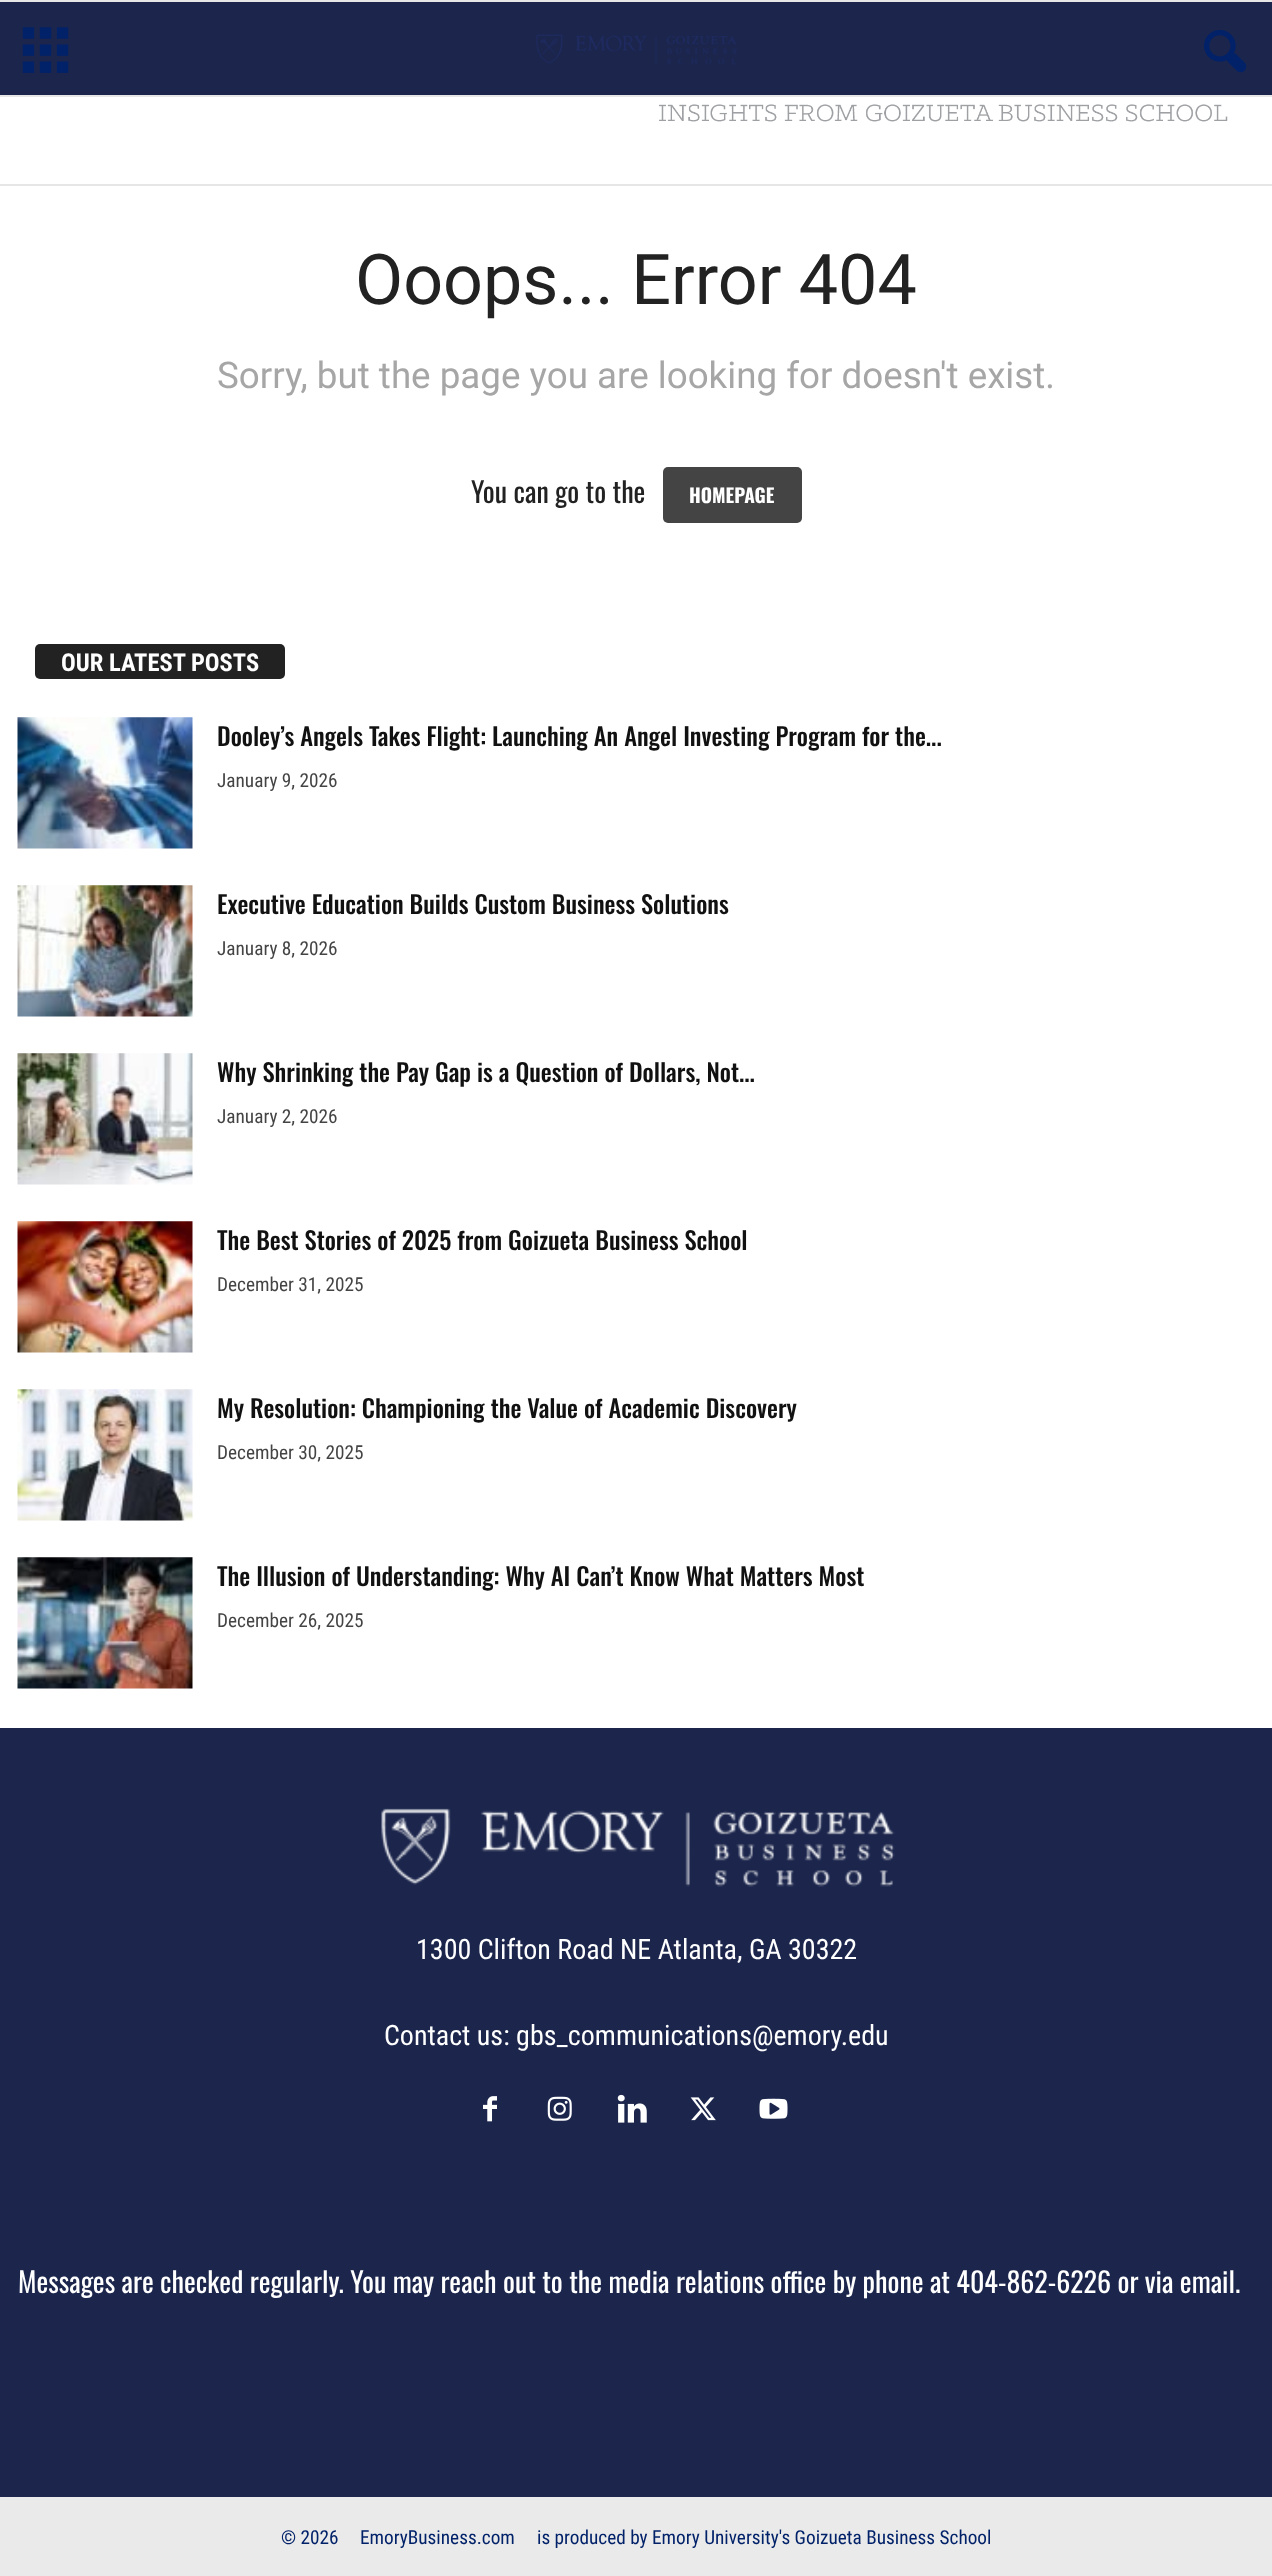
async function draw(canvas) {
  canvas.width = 1272
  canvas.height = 2576
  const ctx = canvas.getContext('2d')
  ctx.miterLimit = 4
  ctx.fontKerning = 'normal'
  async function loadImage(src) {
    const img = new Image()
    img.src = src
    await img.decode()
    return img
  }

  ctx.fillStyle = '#fff'
  ctx.fillRect(0, 0, 1272, 2576)
  ctx.fillStyle = '#1c264d'
  ctx.fillRect(0, 2, 1272, 93)
  ctx.fillStyle = '#e6e6e6'
  ctx.fillRect(0, 0, 1272, 2)
  ctx.fillRect(0, 95, 1272, 2)
  ctx.drawImage(await loadImage('image0.png'), 22, 27, 47, 46)
  ctx.drawImage(await loadImage('image1.png'), 536, 34, 201, 31)
  ctx.drawImage(await loadImage('image2.png'), 1204, 30, 43, 43)
  ctx.fillRect(0, 184, 1272, 2)
  ctx.drawImage(await loadImage('image3.png'), 658, 104, 570, 18)
  ctx.font = '70px Roboto'
  ctx.fillStyle = '#222'
  ctx.fillText('Ooops... Error 404', 355, 304)
  ctx.font = '36.75px Roboto'
  ctx.fillStyle = '#a6a6a6'
  ctx.fillText('Sorry, but the page you are looking for doesn\'t exist.', 217, 388)
  ctx.font = '28px Oswald'
  ctx.fillStyle = '#222'
  ctx.fillText('You can go to the', 471, 503)
  ctx.fillStyle = '#444'
  ctx.beginPath()
  ctx.roundRect(663, 467, 139, 56, 5)
  ctx.fill()
  ctx.font = 'bold 19.25px Oswald'
  ctx.fillStyle = '#fff'
  ctx.fillText('HOMEPAGE', 689, 503)
  ctx.fillStyle = '#222'
  ctx.beginPath()
  ctx.roundRect(35, 644, 250, 35, 5)
  ctx.fill()
  ctx.font = 'bold 24.5px Roboto Condensed'
  ctx.fillStyle = '#fff'
  ctx.fillText('OUR LATEST POSTS', 61, 671)
  ctx.drawImage(await loadImage('image4.png'), 17, 717, 176, 132)
  ctx.font = '500 24.5px Oswald'
  ctx.fillStyle = '#111'
  ctx.fillText('Dooley’s Angels Takes Flight: Launching An Angel Investing Program for the...', 217, 746)
  ctx.font = '19.25px Roboto Condensed'
  ctx.fillStyle = '#444'
  ctx.fillText('January 9, 2026', 217, 787)
  ctx.drawImage(await loadImage('image5.png'), 17, 885, 176, 132)
  ctx.font = '500 24.5px Oswald'
  ctx.fillStyle = '#111'
  ctx.fillText('Executive Education Builds Custom Business Solutions', 217, 914)
  ctx.font = '19.25px Roboto Condensed'
  ctx.fillStyle = '#444'
  ctx.fillText('January 8, 2026', 217, 955)
  ctx.drawImage(await loadImage('image6.png'), 17, 1053, 176, 132)
  ctx.font = '500 24.5px Oswald'
  ctx.fillStyle = '#111'
  ctx.fillText('Why Shrinking the Pay Gap is a Question of Dollars, Not...', 217, 1082)
  ctx.font = '19.25px Roboto Condensed'
  ctx.fillStyle = '#444'
  ctx.fillText('January 2, 2026', 217, 1123)
  ctx.drawImage(await loadImage('image7.png'), 17, 1221, 176, 132)
  ctx.font = '500 24.5px Oswald'
  ctx.fillStyle = '#111'
  ctx.fillText('The Best Stories of 2025 from Goizueta Business School', 217, 1250)
  ctx.font = '19.25px Roboto Condensed'
  ctx.fillStyle = '#444'
  ctx.fillText('December 31, 2025', 217, 1291)
  ctx.drawImage(await loadImage('image8.png'), 17, 1389, 176, 132)
  ctx.font = '500 24.5px Oswald'
  ctx.fillStyle = '#111'
  ctx.fillText('My Resolution: Championing the Value of Academic Discovery', 217, 1418)
  ctx.font = '19.25px Roboto Condensed'
  ctx.fillStyle = '#444'
  ctx.fillText('December 30, 2025', 217, 1459)
  ctx.drawImage(await loadImage('image9.png'), 17, 1557, 176, 132)
  ctx.font = '500 24.5px Oswald'
  ctx.fillStyle = '#111'
  ctx.fillText('The Illusion of Understanding: Why AI Can’t Know What Matters Most', 217, 1586)
  ctx.font = '19.25px Roboto Condensed'
  ctx.fillStyle = '#444'
  ctx.fillText('December 26, 2025', 217, 1627)
  ctx.fillStyle = '#1c264d'
  ctx.fillRect(0, 1728, 1272, 769)
  ctx.drawImage(await loadImage('image10.png'), 381, 1808, 514, 79)
  ctx.font = '28px Roboto Condensed'
  ctx.fillStyle = '#fff'
  ctx.fillText('1300 Clifton Road NE Atlanta, GA 30322', 416, 1959)
  ctx.fillText('Contact us: gbs_communications@emory.edu', 384, 2045)
  ctx.drawImage(await loadImage('image11.png'), 483, 2096, 14, 26)
  ctx.drawImage(await loadImage('image12.png'), 547, 2096, 25, 25)
  ctx.drawImage(await loadImage('image13.png'), 617, 2094, 30, 29)
  ctx.drawImage(await loadImage('image14.png'), 690, 2097, 26, 24)
  ctx.drawImage(await loadImage('image15.png'), 759, 2098, 29, 21)
  ctx.font = '28px Oswald'
  ctx.fillText('Messages are checked regularly. You may reach out to the media relations office by phone at 404-862-6226 or via email.', 18, 2293)
  ctx.fillStyle = '#eaeaea'
  ctx.fillRect(0, 2497, 1272, 79)
  ctx.font = '19.25px Roboto Condensed'
  ctx.fillStyle = '#012169'
  ctx.fillText('© 2026', 281, 2544)
  ctx.fillText('EmoryBusiness.com', 360, 2544)
  ctx.fillText('is produced by Emory University\'s Goizueta Business School', 537, 2544)
}

draw(document.querySelector('canvas'))
